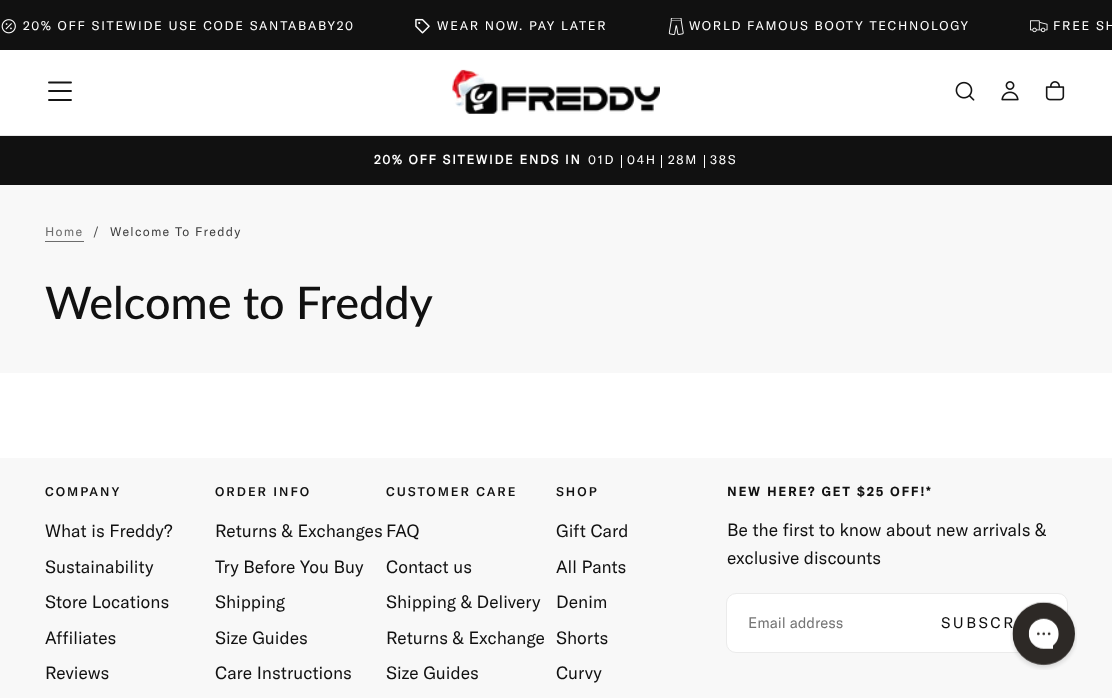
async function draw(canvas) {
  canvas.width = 1112
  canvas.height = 698
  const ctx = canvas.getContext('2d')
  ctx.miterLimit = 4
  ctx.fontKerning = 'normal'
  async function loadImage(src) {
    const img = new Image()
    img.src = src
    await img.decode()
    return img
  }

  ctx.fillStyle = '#fff'
  ctx.fillRect(0, 0, 1112, 698)
  ctx.fillStyle = '#111'
  ctx.fillRect(0, 0, 1112, 50)
  ctx.drawImage(await loadImage('image0.png'), 1, 19, 15, 15)
  ctx.letterSpacing = '1.75px'
  ctx.font = '12.5px GT America'
  ctx.fillStyle = '#fff'
  ctx.fillText('20% OFF SITEWIDE USE CODE SANTABABY20', 23, 30)
  ctx.drawImage(await loadImage('image1.png'), 415, 18, 15, 16)
  ctx.fillText('WEAR NOW. PAY LATER', 437, 30)
  ctx.drawImage(await loadImage('image2.png'), 668, 18, 16, 17)
  ctx.fillText('WORLD FAMOUS BOOTY TECHNOLOGY', 689, 30)
  ctx.drawImage(await loadImage('image3.png'), 1030, 20, 18, 13)
  ctx.fillText('FREE SH', 1053, 30)
  ctx.fillStyle = '#e8e8e8'
  ctx.fillRect(0, 135, 1112, 1)
  ctx.beginPath()
  ctx.moveTo(49, 91)
  ctx.lineTo(71, 91)
  ctx.moveTo(49, 82.5)
  ctx.lineTo(71, 82.5)
  ctx.moveTo(49, 100)
  ctx.lineTo(71, 100)
  ctx.strokeStyle = '#151515'
  ctx.lineWidth = 1.9
  ctx.lineCap = 'round'
  ctx.stroke()
  ctx.drawImage(await loadImage('image4.png'), 452, 69, 208, 45)
  ctx.drawImage(await loadImage('image5.png'), 955, 81, 20, 20)
  ctx.drawImage(await loadImage('image6.png'), 1001, 81, 18, 20)
  ctx.drawImage(await loadImage('image7.png'), 1045, 81, 20, 20)
  ctx.fillStyle = '#111'
  ctx.fillRect(0, 136, 1112, 49)
  ctx.font = 'bold 12.5px "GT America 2"'
  ctx.fillStyle = '#fff'
  ctx.fillText('20% OFF SITEWIDE ENDS IN', 374, 164)
  ctx.font = '12.5px GT America'
  ctx.fillText('01D', 588, 164)
  ctx.fillRect(621, 155, 1, 13)
  ctx.fillText('04H', 627, 164)
  ctx.fillRect(661, 155, 1, 13)
  ctx.fillText('28M', 668, 164)
  ctx.fillRect(704, 155, 1, 13)
  ctx.fillText('38S', 710, 164)
  ctx.fillStyle = '#f8f8f8'
  ctx.fillRect(0, 185, 1112, 188)
  ctx.letterSpacing = '1.25px'
  ctx.fillStyle = '#6d6d6d'
  ctx.fillText('Home', 45, 236)
  ctx.fillRect(45, 241, 39, 1)
  ctx.fillStyle = '#4b4b4b'
  ctx.fillText('/', 93, 236)
  ctx.fillStyle = '#3f3f3f'
  ctx.fillText('Welcome To Freddy', 110, 236)
  ctx.letterSpacing = '0px'
  ctx.font = '500 45px Lato'
  ctx.fillStyle = '#111'
  ctx.fillText('Welcome to Freddy', 45, 319)
  ctx.fillStyle = '#f8f8f8'
  ctx.fillRect(0, 458, 1112, 240)
  ctx.letterSpacing = '2px'
  ctx.font = '500 12.5px GT America'
  ctx.fillStyle = '#111'
  ctx.fillText('COMPANY', 45, 496)
  ctx.letterSpacing = '0px'
  ctx.font = '17.5px GT America'
  ctx.fillText('What is Freddy?', 45, 537)
  ctx.fillText('Sustainability', 45, 573)
  ctx.fillText('Store Locations', 45, 608)
  ctx.fillText('Affiliates', 45, 644)
  ctx.fillText('Reviews', 45, 679)
  ctx.letterSpacing = '2px'
  ctx.font = '500 12.5px GT America'
  ctx.fillText('ORDER INFO', 215, 496)
  ctx.letterSpacing = '0px'
  ctx.font = '17.5px GT America'
  ctx.fillText('Returns & Exchanges', 215, 537)
  ctx.fillText('Try Before You Buy', 215, 573)
  ctx.fillText('Shipping', 215, 608)
  ctx.fillText('Size Guides', 215, 644)
  ctx.fillText('Care Instructions', 215, 679)
  ctx.letterSpacing = '2px'
  ctx.font = '500 12.5px GT America'
  ctx.fillText('CUSTOMER CARE', 386, 496)
  ctx.letterSpacing = '0px'
  ctx.font = '17.5px GT America'
  ctx.fillText('FAQ', 386, 537)
  ctx.fillText('Contact us', 386, 573)
  ctx.fillText('Shipping & Delivery', 386, 608)
  ctx.fillText('Returns & Exchange', 386, 644)
  ctx.fillText('Size Guides', 386, 679)
  ctx.letterSpacing = '2px'
  ctx.font = '500 12.5px GT America'
  ctx.fillText('SHOP', 556, 496)
  ctx.letterSpacing = '0px'
  ctx.font = '17.5px GT America'
  ctx.fillText('Gift Card', 556, 537)
  ctx.fillText('All Pants', 556, 573)
  ctx.fillText('Denim', 556, 608)
  ctx.fillText('Shorts', 556, 644)
  ctx.fillText('Curvy', 556, 679)
  ctx.letterSpacing = '2px'
  ctx.font = 'bold 12.5px GT America'
  ctx.fillText('NEW HERE? GET $25 OFF!*', 727, 496)
  ctx.letterSpacing = '0px'
  ctx.font = '17.5px GT America'
  ctx.fillText('Be the first to know about new arrivals &', 727, 536)
  ctx.fillText('exclusive discounts', 727, 564)
  ctx.fillStyle = '#fff'
  ctx.beginPath()
  ctx.roundRect(726.5, 593.5, 341, 59, 9.5)
  ctx.fill()
  ctx.strokeStyle = '#ebebeb'
  ctx.lineWidth = 1
  ctx.stroke()
  ctx.font = '15px GT America'
  ctx.fillStyle = '#757575'
  ctx.fillText('Email address', 748, 628)
  ctx.letterSpacing = '2.5px'
  ctx.fillStyle = '#111'
  ctx.fillText('SUBSCR', 941, 628)
  ctx.drawImage(await loadImage('image8.png'), 1010, 601, 67, 69)
}

draw(document.querySelector('canvas'))
